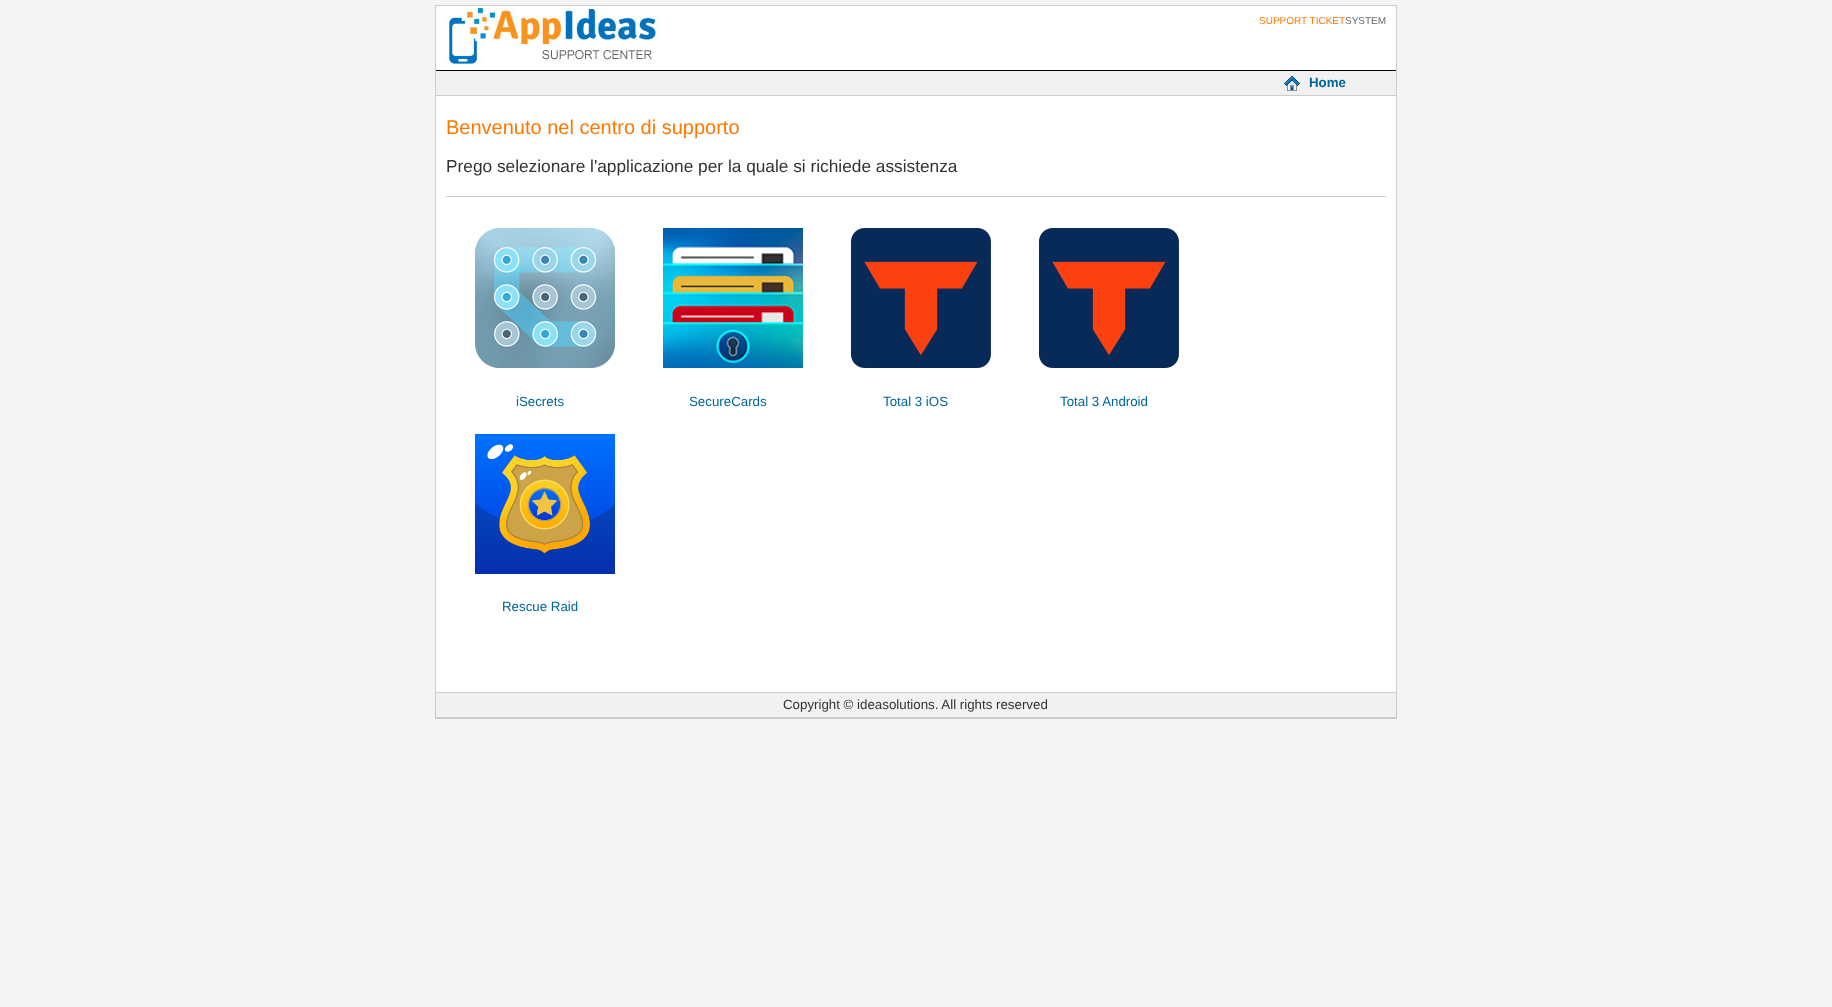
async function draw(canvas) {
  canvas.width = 1832
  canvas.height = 1007
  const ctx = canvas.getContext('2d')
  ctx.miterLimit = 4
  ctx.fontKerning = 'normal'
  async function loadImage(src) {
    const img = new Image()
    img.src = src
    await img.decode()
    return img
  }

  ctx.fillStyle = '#f4f4f4'
  ctx.fillRect(0, 0, 1832, 1007)
  ctx.fillStyle = '#fff'
  ctx.fillRect(436, 6, 960, 686)
  ctx.strokeStyle = '#ccc'
  ctx.strokeRect(435.5, 5.5, 961, 713)
  ctx.fillStyle = '#000'
  ctx.fillRect(436, 70, 960, 1)
  ctx.drawImage(await loadImage('image0.png'), 444, 8, 214, 56)
  ctx.font = '10px Liberation Sans'
  ctx.fillStyle = '#fe7700'
  ctx.fillText('SUPPORT TICKET', 1259, 24)
  ctx.fillStyle = '#666'
  ctx.fillText('SYSTEM', 1345, 24)
  ctx.fillStyle = '#f1f1f1'
  ctx.fillRect(436, 71, 960, 24)
  ctx.fillStyle = '#ccc'
  ctx.fillRect(436, 95, 960, 1)
  ctx.drawImage(await loadImage('image1.png'), 1284, 76, 16, 15)
  ctx.font = 'bold 13.3px Liberation Sans'
  ctx.fillStyle = '#069'
  ctx.fillText('Home', 1309, 87)
  ctx.font = '20px Liberation Sans'
  ctx.fillStyle = '#fe7700'
  ctx.fillText('Benvenuto nel centro di supporto', 446, 134)
  ctx.font = '17.3px Liberation Sans'
  ctx.fillStyle = '#333'
  ctx.fillText('Prego selezionare l\'applicazione per la quale si richiede assistenza', 446, 172)
  ctx.fillStyle = '#ccc'
  ctx.fillRect(446, 196, 940, 1)
  ctx.drawImage(await loadImage('image2.png'), 475, 228, 140, 140)
  ctx.font = '13.3px Liberation Sans'
  ctx.fillStyle = '#069'
  ctx.fillText('iSecrets', 516, 406)
  ctx.drawImage(await loadImage('image3.png'), 663, 228, 140, 140)
  ctx.fillText('SecureCards', 689, 406)
  ctx.drawImage(await loadImage('image4.png'), 851, 228, 140, 140)
  ctx.fillText('Total 3 iOS', 883, 406)
  ctx.drawImage(await loadImage('image4.png'), 1039, 228, 140, 140)
  ctx.fillText('Total 3 Android', 1060, 406)
  ctx.drawImage(await loadImage('image5.png'), 475, 434, 140, 140)
  ctx.fillText('Rescue Raid', 502, 611)
  ctx.fillStyle = '#f1f1f1'
  ctx.fillRect(436, 693, 960, 24)
  ctx.fillStyle = '#ccc'
  ctx.fillRect(436, 692, 960, 1)
  ctx.fillRect(436, 717, 960, 1)
  ctx.fillStyle = '#333'
  ctx.fillText('Copyright © ideasolutions. All rights reserved', 783, 709)
}

draw(document.querySelector('canvas'))
